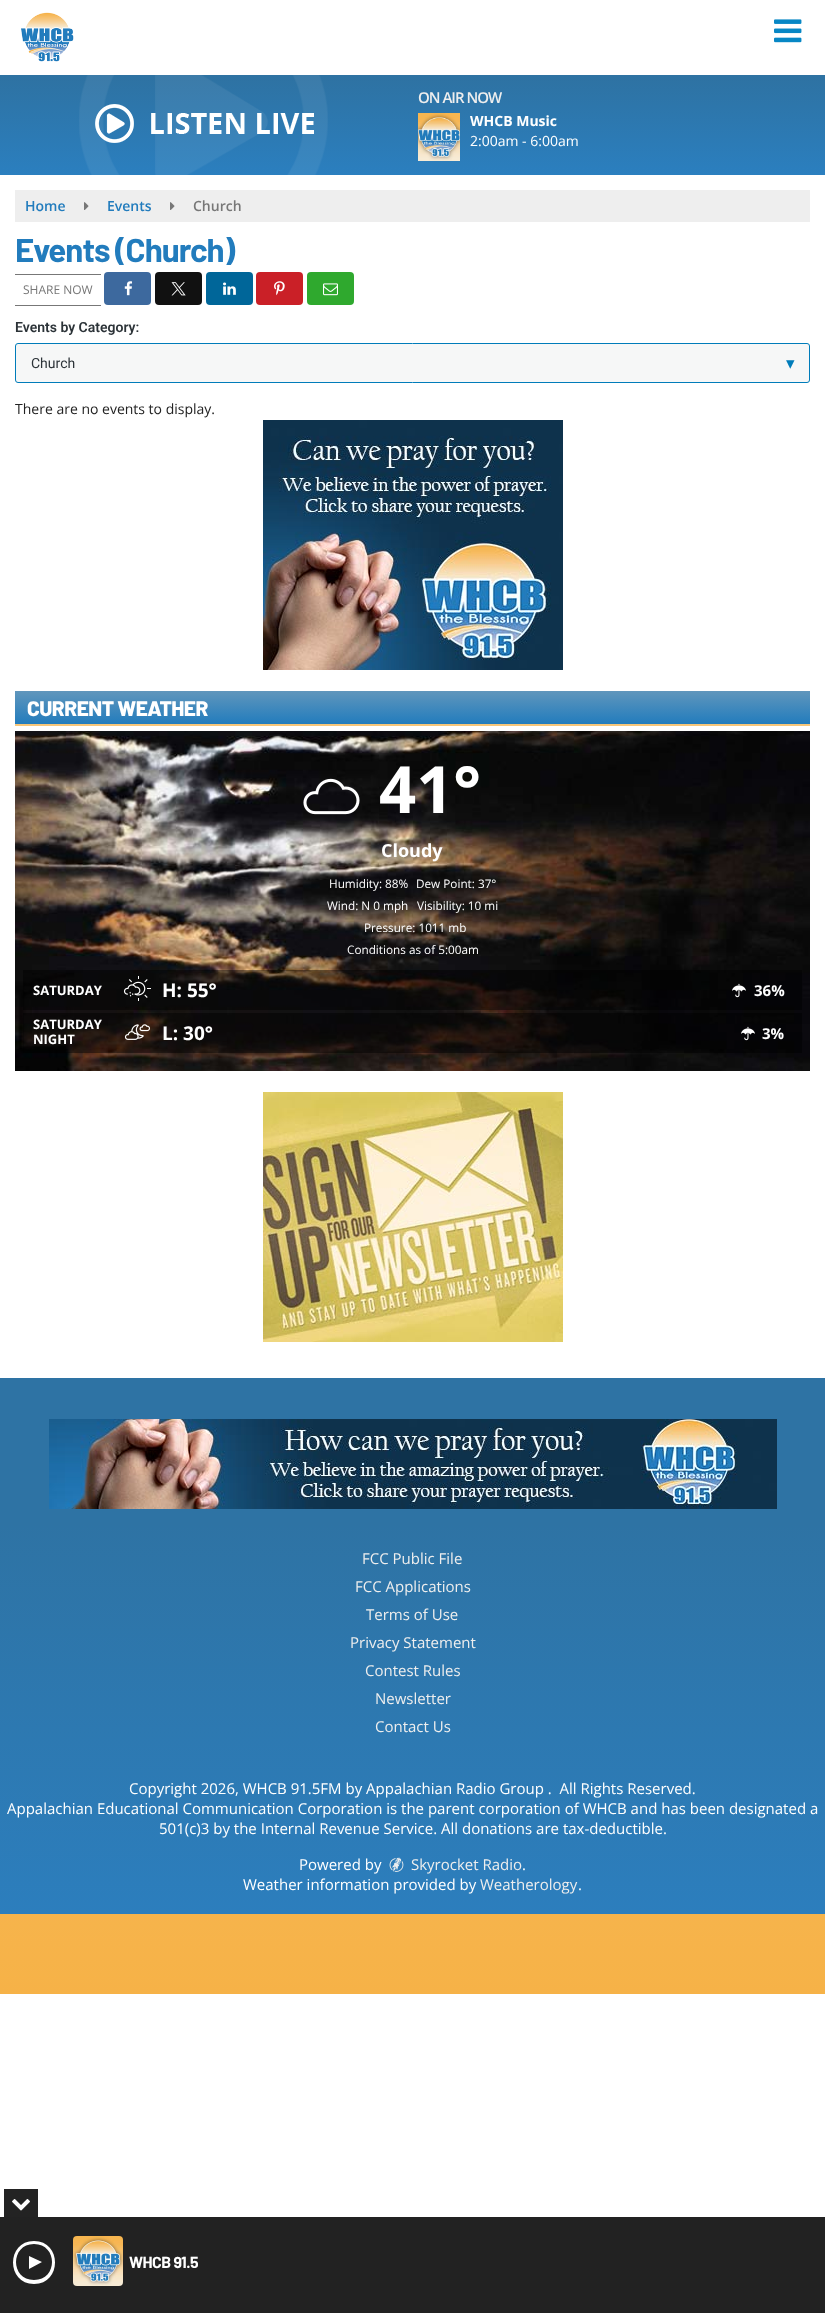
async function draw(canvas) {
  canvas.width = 825
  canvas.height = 2313
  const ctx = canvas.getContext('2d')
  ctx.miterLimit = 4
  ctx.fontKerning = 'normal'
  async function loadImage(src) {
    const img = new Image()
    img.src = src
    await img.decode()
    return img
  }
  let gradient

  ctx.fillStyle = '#fff'
  ctx.fillRect(0, 0, 825, 2313)
  ctx.fillStyle = '#222'
  ctx.fillRect(0, 2217, 825, 96)
  gradient = ctx.createLinearGradient(412, 0, 413, 1994)
  gradient.addColorStop(0, '#f7e0ba')
  gradient.addColorStop(1, '#f6b247')
  ctx.fillStyle = gradient
  ctx.fillRect(0, 1914, 825, 80)
  ctx.drawImage(await loadImage('image0.png'), 21, 12, 53, 50)
  ctx.drawImage(await loadImage('image1.png'), 774, 19, 28, 24)
  gradient = ctx.createLinearGradient(413, 75, 413, 175)
  gradient.addColorStop(0, '#2e72a2')
  gradient.addColorStop(1, '#2b7fbf')
  ctx.fillStyle = gradient
  ctx.fillRect(0, 75, 825, 100)
  ctx.drawImage(await loadImage('image2.png'), 79, 75, 249, 100)
  ctx.drawImage(await loadImage('image3.png'), 95, 104, 219, 39)
  ctx.letterSpacing = '-1px'
  ctx.font = '600 15px Open Sans'
  ctx.fillStyle = '#eee'
  ctx.fillText('ON AIR NOW', 418, 103)
  ctx.drawImage(await loadImage('image4.png'), 418, 113, 42, 48)
  ctx.letterSpacing = '0px'
  ctx.font = 'bold 14px Open Sans'
  ctx.fillStyle = '#fff'
  ctx.fillText('WHCB Music', 470, 126)
  ctx.font = '14px Open Sans'
  ctx.fillText('2:00am - 6:00am', 470, 146)
  ctx.fillStyle = '#eee'
  ctx.fillRect(15, 190, 795, 32)
  ctx.font = '600 14px Open Sans'
  ctx.fillStyle = '#227cbd'
  ctx.fillText('Home', 25, 211)
  ctx.drawImage(await loadImage('image5.png'), 84, 202, 5, 8)
  ctx.fillText('Events', 107, 211)
  ctx.drawImage(await loadImage('image5.png'), 170, 202, 5, 8)
  ctx.fillStyle = '#777'
  ctx.fillText('Church', 193, 211)
  ctx.letterSpacing = '-1px'
  ctx.font = 'bold 33px Barlow'
  ctx.fillStyle = '#227cbd'
  ctx.fillText('Events (Church)', 15, 262)
  ctx.fillStyle = '#777'
  ctx.fillRect(15, 274, 86, 1)
  ctx.fillRect(15, 305, 86, 1)
  ctx.letterSpacing = '0px'
  ctx.font = '12px Open Sans'
  ctx.fillText('SHARE NOW', 23, 294)
  ctx.fillStyle = '#3d699e'
  ctx.beginPath()
  ctx.roundRect(104, 272, 47, 33, 4)
  ctx.fill()
  ctx.drawImage(await loadImage('image6.png'), 124, 281, 9, 15)
  ctx.fillStyle = '#111'
  ctx.beginPath()
  ctx.roundRect(155, 272, 47, 33, 4)
  ctx.fill()
  ctx.drawImage(await loadImage('image7.png'), 171, 282, 15, 14)
  ctx.fillStyle = '#069'
  ctx.beginPath()
  ctx.roundRect(206, 272, 47, 33, 4)
  ctx.fill()
  ctx.drawImage(await loadImage('image8.png'), 223, 282, 13, 13)
  ctx.fillStyle = '#ca2027'
  ctx.beginPath()
  ctx.roundRect(256, 272, 47, 33, 4)
  ctx.fill()
  ctx.drawImage(await loadImage('image9.png'), 274, 281, 11, 15)
  ctx.fillStyle = '#2fa92e'
  ctx.beginPath()
  ctx.roundRect(307, 272, 47, 33, 4)
  ctx.fill()
  ctx.drawImage(await loadImage('image10.png'), 323, 283, 15, 13)
  ctx.font = '600 14px Roboto'
  ctx.fillStyle = '#2c3338'
  ctx.fillText('Events by Category:', 15, 332)
  ctx.fillStyle = '#f6f7f7'
  ctx.beginPath()
  ctx.roundRect(15.5, 343.5, 794, 39, 2.5)
  ctx.fill()
  ctx.strokeStyle = '#007cba'
  ctx.stroke()
  ctx.font = '14px Roboto'
  ctx.fillStyle = '#2c3338'
  ctx.fillText('Church', 31, 368)
  ctx.font = '17px DejaVu Sans'
  ctx.fillStyle = '#007cba'
  ctx.fillText('▾', 786, 369)
  ctx.font = '14px Open Sans'
  ctx.fillStyle = '#222'
  ctx.fillText('There are no events to display.', 15, 414)
  ctx.drawImage(await loadImage('image11.png'), 263, 420, 300, 250)
  gradient = ctx.createLinearGradient(413, 691, 413, 724)
  gradient.addColorStop(0, '#6096bc')
  gradient.addColorStop(1, '#227cbd')
  ctx.fillStyle = gradient
  ctx.fillRect(15, 691, 795, 33)
  ctx.fillStyle = '#f6c67a'
  ctx.fillRect(15, 724, 795, 2)
  ctx.letterSpacing = '-0.5px'
  ctx.font = '800 21px Barlow'
  ctx.fillStyle = '#fff'
  ctx.fillText('CURRENT WEATHER', 27, 716)
  ctx.drawImage(await loadImage('image12.png'), 15, 731, 795, 340)
  ctx.drawImage(await loadImage('image13.png'), 303, 778, 57, 37)
  ctx.letterSpacing = '0px'
  ctx.font = 'bold 65px Open Sans'
  ctx.fillText('41°', 379, 813)
  ctx.font = 'bold 18px Open Sans'
  ctx.fillText('Cloudy', 381, 857)
  ctx.font = '11.75px Open Sans'
  ctx.fillText('Humidity: 88%', 329, 888)
  ctx.fillText('Dew Point: 37°', 416, 888)
  ctx.fillText('Wind: N 0 mph', 327, 910)
  ctx.fillText('Visibility: 10 mi', 417, 910)
  ctx.fillText('Pressure: 1011 mb', 364, 932)
  ctx.fillText('Conditions as of 5:00am', 347, 954)
  ctx.fillStyle = '#00000073'
  ctx.fillRect(23, 970, 779, 40)
  ctx.font = 'bold 13px Open Sans'
  ctx.fillStyle = '#fff'
  ctx.fillText('SATURDAY', 33, 995)
  ctx.drawImage(await loadImage('image14.png'), 123, 976, 28, 25)
  ctx.font = 'bold 19px Open Sans'
  ctx.fillText('H: 55°', 162, 997)
  ctx.drawImage(await loadImage('image15.png'), 732, 983, 14, 15)
  ctx.font = 'bold 15px Open Sans'
  ctx.fillText('36%', 754, 996)
  ctx.fillStyle = '#00000073'
  ctx.fillRect(23, 1013, 779, 40)
  ctx.font = 'bold 13px Open Sans'
  ctx.fillStyle = '#fff'
  ctx.fillText('SATURDAY', 33, 1029)
  ctx.fillText('NIGHT', 33, 1044)
  ctx.drawImage(await loadImage('image16.png'), 124, 1024, 26, 16)
  ctx.font = 'bold 19px Open Sans'
  ctx.fillText('L: 30°', 162, 1040)
  ctx.drawImage(await loadImage('image17.png'), 741, 1026, 14, 15)
  ctx.font = 'bold 15px Open Sans'
  ctx.fillText('3%', 762, 1039)
  ctx.drawImage(await loadImage('image18.png'), 263, 1092, 300, 250)
  ctx.fillStyle = '#2e73a4'
  ctx.fillRect(0, 1378, 825, 146)
  ctx.drawImage(await loadImage('image19.png'), 49, 1419, 728, 90)
  gradient = ctx.createLinearGradient(413, 1524, 413, 1914)
  gradient.addColorStop(0, '#2e73a4')
  gradient.addColorStop(1, '#2c7ebd')
  ctx.fillStyle = gradient
  ctx.fillRect(0, 1524, 825, 390)
  ctx.font = '15px Open Sans'
  ctx.fillStyle = '#eee'
  ctx.fillText('FCC Public File', 362, 1564)
  ctx.fillText('FCC Applications', 355, 1592)
  ctx.fillText('Terms of Use', 366, 1620)
  ctx.fillText('Privacy Statement', 350, 1648)
  ctx.fillText('Contest Rules', 365, 1676)
  ctx.fillText('Newsletter', 375, 1704)
  ctx.fillText('Contact Us', 375, 1732)
  ctx.fillStyle = '#fff'
  ctx.fillText('Copyright 2026, WHCB 91.5FM by Appalachian Radio Group .  All Rights Reserved.', 129, 1794)
  ctx.fillText('Appalachian Educational Communication Corporation is the parent corporation of WHCB and has been designated a', 7, 1814)
  ctx.fillText('501(c)3 by the Internal Revenue Service. All donations are tax-deductible.', 159, 1834)
  ctx.fillText('Powered by', 299, 1870)
  ctx.drawImage(await loadImage('image20.png'), 389, 1857, 15, 15)
  ctx.fillStyle = '#eee'
  ctx.fillText('Skyrocket Radio', 411, 1870)
  ctx.fillStyle = '#fff'
  ctx.fillText('.', 522, 1870)
  ctx.fillText('Weather information provided by', 243, 1890)
  ctx.fillStyle = '#eee'
  ctx.fillText('Weatherology', 480, 1890)
  ctx.fillStyle = '#fff'
  ctx.fillText('.', 578, 1890)
  ctx.fillStyle = '#232323'
  ctx.fillRect(4, 2189, 34, 28)
  ctx.drawImage(await loadImage('image21.png'), 12, 2199, 18, 12)
  ctx.fillStyle = '#fff'
  ctx.beginPath()
  ctx.moveTo(34, 2241)
  ctx.bezierCurveTo(6, 2241, 6, 2284, 34, 2284)
  ctx.bezierCurveTo(62, 2284, 62, 2241, 34, 2241)
  ctx.closePath()
  ctx.moveTo(34, 2280)
  ctx.bezierCurveTo(10, 2280, 10, 2244, 34, 2244)
  ctx.bezierCurveTo(58, 2244, 58, 2280, 34, 2280)
  ctx.closePath()
  ctx.moveTo(29, 2269)
  ctx.lineTo(42, 2262)
  ctx.lineTo(29, 2256)
  ctx.closePath()
  ctx.fill()
  ctx.drawImage(await loadImage('image22.png'), 73, 2236, 50, 50)
  ctx.save()
  ctx.beginPath()
  ctx.rect(129, 2251, 69, 21)
  ctx.clip()
  ctx.letterSpacing = '-0.5px'
  ctx.font = 'bold 16px Barlow'
  ctx.fillText('WHCB 91.5', 129, 2268)
  ctx.restore()
}

draw(document.querySelector('canvas'))
